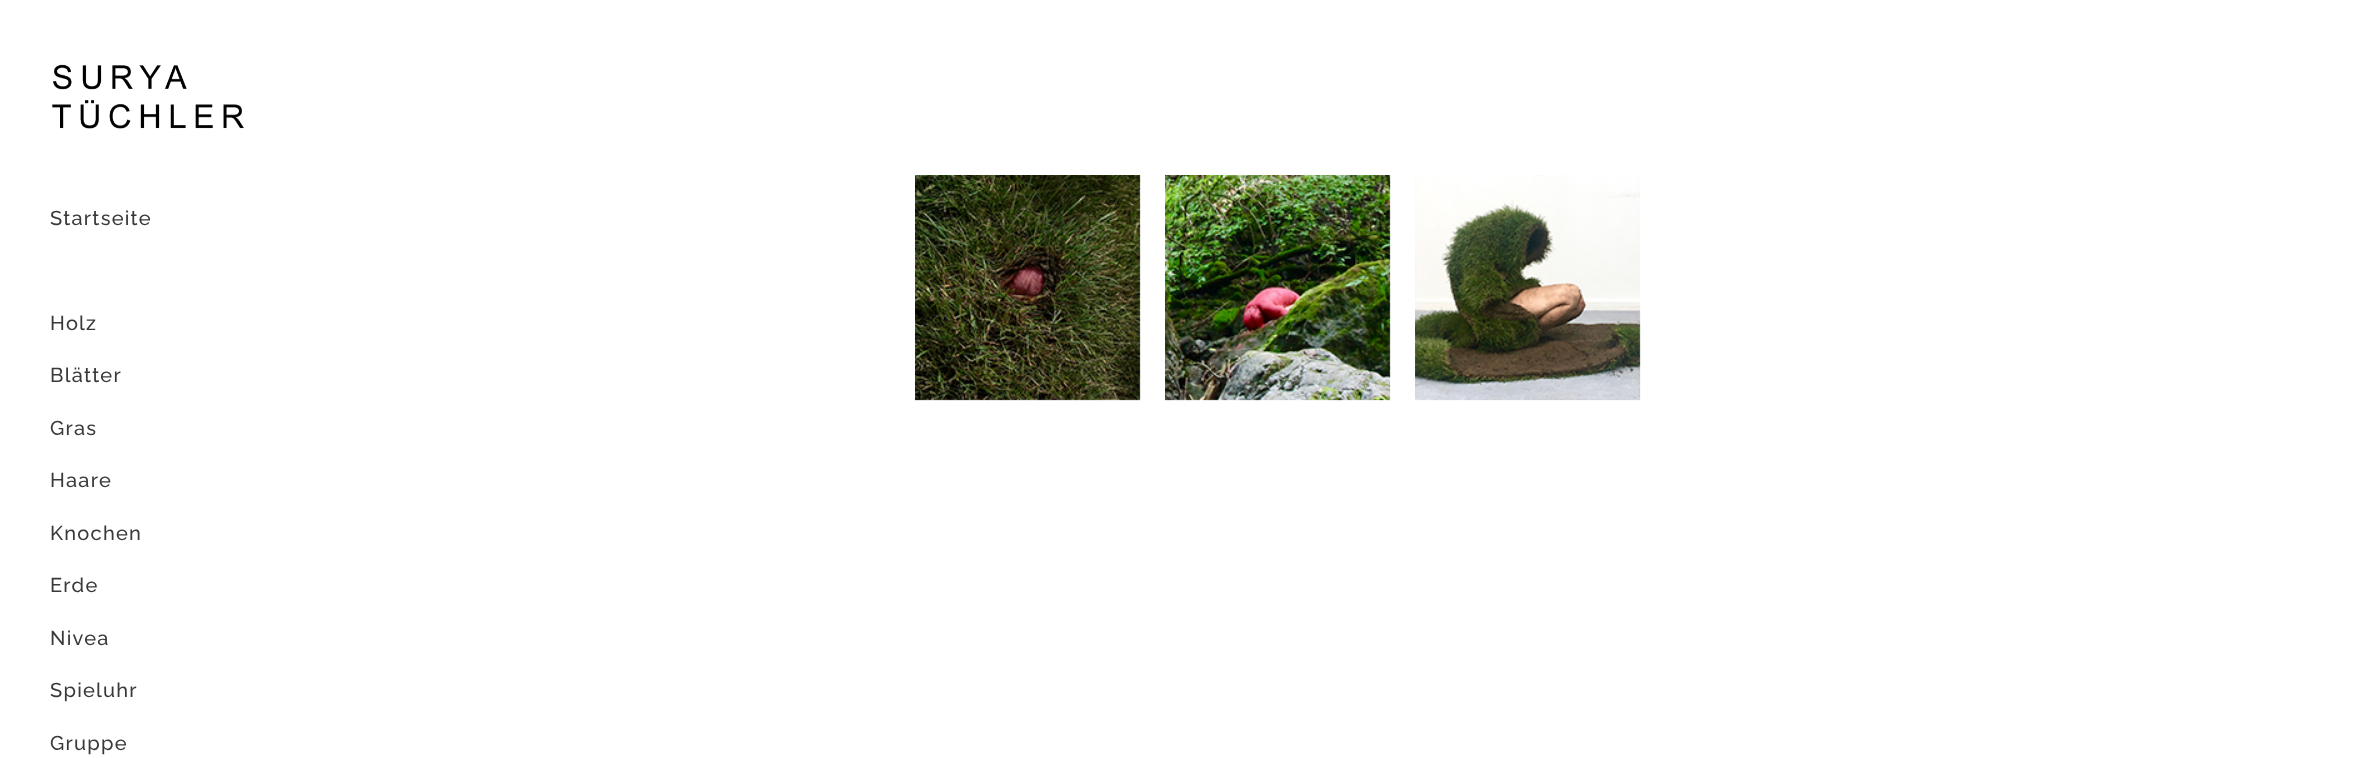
async function draw(canvas) {
  canvas.width = 2378
  canvas.height = 758
  const ctx = canvas.getContext('2d')
  ctx.miterLimit = 4
  ctx.fontKerning = 'normal'
  async function loadImage(src) {
    const img = new Image()
    img.src = src
    await img.decode()
    return img
  }

  ctx.fillStyle = '#fff'
  ctx.fillRect(0, 0, 2378, 758)
  ctx.drawImage(await loadImage('image0.png'), 52, 64, 192, 65)
  ctx.letterSpacing = '1.25px'
  ctx.font = '500 20px Raleway'
  ctx.fillStyle = '#393939'
  ctx.fillText('Startseite', 50, 225)
  ctx.fillText('Holz', 50, 330)
  ctx.fillText('Blätter', 50, 382)
  ctx.fillText('Gras', 50, 435)
  ctx.fillText('Haare', 50, 487)
  ctx.fillText('Knochen', 50, 540)
  ctx.fillText('Erde', 50, 592)
  ctx.fillText('Nivea', 50, 645)
  ctx.fillText('Spieluhr', 50, 697)
  ctx.fillText('Gruppe', 50, 750)
  ctx.drawImage(await loadImage('image1.png'), 915, 175, 226, 226)
  ctx.drawImage(await loadImage('image2.png'), 1165, 175, 226, 226)
  ctx.drawImage(await loadImage('image3.png'), 1415, 175, 226, 226)
}

draw(document.querySelector('canvas'))
